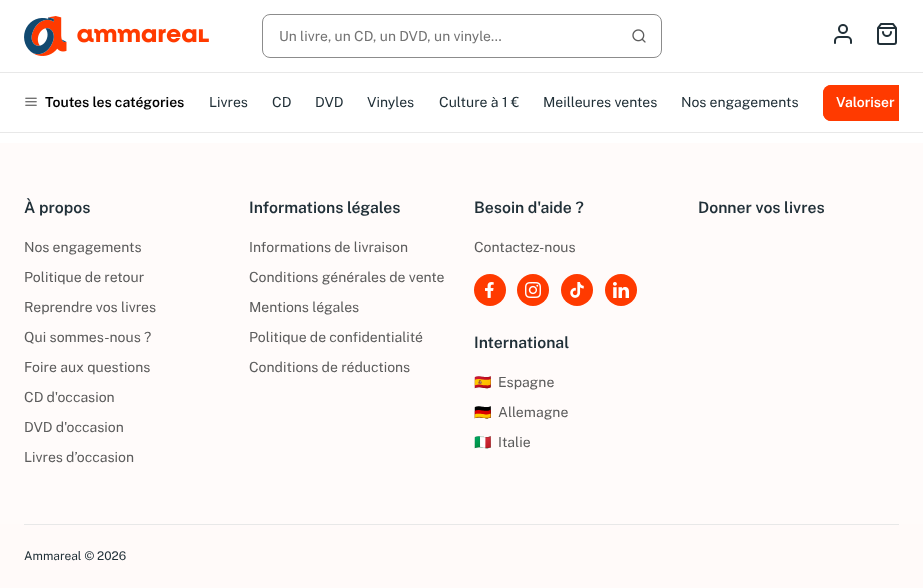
async function draw(canvas) {
  canvas.width = 923
  canvas.height = 588
  const ctx = canvas.getContext('2d')
  ctx.miterLimit = 4
  ctx.fontKerning = 'normal'
  async function loadImage(src) {
    const img = new Image()
    img.src = src
    await img.decode()
    return img
  }

  ctx.fillStyle = '#fff'
  ctx.fillRect(0, 0, 923, 588)
  ctx.fillStyle = '#e8e8e8'
  ctx.fillRect(0, 72, 923, 1)
  ctx.drawImage(await loadImage('image0.png'), 24, 16, 185, 40)
  ctx.beginPath()
  ctx.roundRect(262.5, 14.5, 399, 43, 7.5)
  ctx.strokeStyle = '#8c8c8c'
  ctx.stroke()
  ctx.font = '100 13.9px Public Sans'
  ctx.fillStyle = '#737373'
  ctx.fillText('Un livre, un CD, un DVD, un vinyle...', 279, 41)
  ctx.drawImage(await loadImage('image1.png'), 632, 29, 14, 14)
  ctx.drawImage(await loadImage('image2.png'), 834, 24, 18, 20)
  ctx.drawImage(await loadImage('image3.png'), 877, 23, 20, 22)
  ctx.drawImage(await loadImage('image4.png'), 25, 97, 12, 9)
  ctx.font = '100 14px "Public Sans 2"'
  ctx.fillStyle = '#000'
  ctx.fillText('Toutes les catégories', 45, 107)
  ctx.font = '100 14px Public Sans'
  ctx.fillStyle = '#213038'
  ctx.fillText('Livres', 209, 107)
  ctx.fillText('CD', 272, 107)
  ctx.fillText('DVD', 315, 107)
  ctx.fillText('Vinyles', 367, 107)
  ctx.fillText('Culture à 1 €', 439, 107)
  ctx.fillText('Meilleures ventes', 543, 107)
  ctx.fillText('Nos engagements', 681, 107)
  ctx.fillStyle = '#ff3a00'
  ctx.beginPath()
  ctx.roundRect(823, 85, 76, 36, [8, 0, 0, 8])
  ctx.fill()
  ctx.save()
  ctx.beginPath()
  ctx.rect(24, 73, 875, 60)
  ctx.clip()
  ctx.beginPath()
  ctx.roundRect(823.5, 85.5, 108, 35, 7.5)
  ctx.strokeStyle = '#ff3a00'
  ctx.stroke()
  ctx.restore()
  ctx.font = '100 13.9px "Public Sans 2"'
  ctx.fillStyle = '#fff'
  ctx.fillText('Valoriser', 836, 107)
  ctx.fillStyle = '#e8e8e8'
  ctx.fillRect(0, 132, 923, 1)
  ctx.fillStyle = '#fffbfa'
  ctx.fillRect(0, 143, 923, 381)
  ctx.font = '100 15.75px "Public Sans 2"'
  ctx.fillStyle = '#213038'
  ctx.fillText('À propos', 24, 213)
  ctx.font = '100 14px Public Sans'
  ctx.fillStyle = '#5c5c5c'
  ctx.fillText('Nos engagements', 24, 252)
  ctx.fillText('Politique de retour', 24, 282)
  ctx.fillText('Reprendre vos livres', 24, 312)
  ctx.fillText('Qui sommes-nous ?', 24, 342)
  ctx.fillText('Foire aux questions', 24, 372)
  ctx.fillText('CD d\'occasion', 24, 402)
  ctx.fillText('DVD d\'occasion', 24, 432)
  ctx.fillText('Livres d’occasion', 24, 462)
  ctx.font = '100 15.75px "Public Sans 2"'
  ctx.fillStyle = '#213038'
  ctx.fillText('Informations légales', 249, 213)
  ctx.font = '100 14px Public Sans'
  ctx.fillStyle = '#5c5c5c'
  ctx.fillText('Informations de livraison', 249, 252)
  ctx.fillText('Conditions générales de vente', 249, 282)
  ctx.fillText('Mentions légales', 249, 312)
  ctx.fillText('Politique de confidentialité', 249, 342)
  ctx.fillText('Conditions de réductions', 249, 372)
  ctx.font = '100 15.75px "Public Sans 2"'
  ctx.fillStyle = '#213038'
  ctx.fillText('Besoin d\'aide ?', 474, 213)
  ctx.font = '100 14px Public Sans'
  ctx.fillStyle = '#5c5c5c'
  ctx.fillText('Contactez-nous', 474, 252)
  ctx.fillStyle = '#ff3a00'
  ctx.beginPath()
  ctx.arc(490, 290, 16, 0, 2 * Math.PI)
  ctx.fill()
  ctx.drawImage(await loadImage('image5.png'), 485, 282, 9, 16)
  ctx.beginPath()
  ctx.arc(533, 290, 16, 0, 2 * Math.PI)
  ctx.fill()
  ctx.drawImage(await loadImage('image6.png'), 525, 282, 16, 16)
  ctx.beginPath()
  ctx.arc(577, 290, 16, 0, 2 * Math.PI)
  ctx.fill()
  ctx.drawImage(await loadImage('image7.png'), 570, 282, 14, 16)
  ctx.beginPath()
  ctx.arc(621, 290, 16, 0, 2 * Math.PI)
  ctx.fill()
  ctx.drawImage(await loadImage('image8.png'), 613, 282, 16, 16)
  ctx.font = '100 15.75px "Public Sans 2"'
  ctx.fillStyle = '#213038'
  ctx.fillText('International', 474, 348)
  ctx.font = '14px Noto Color Emoji'
  ctx.fillStyle = '#5c5c5c'
  ctx.fillText('🇪🇸', 474, 387)
  ctx.font = '100 14px Public Sans'
  ctx.fillText('Espagne', 498, 387)
  ctx.font = '14px Noto Color Emoji'
  ctx.fillText('🇩🇪', 474, 417)
  ctx.font = '100 14px Public Sans'
  ctx.fillText('Allemagne', 498, 417)
  ctx.font = '14px Noto Color Emoji'
  ctx.fillText('🇮🇹', 474, 447)
  ctx.font = '100 14px Public Sans'
  ctx.fillText('Italie', 498, 447)
  ctx.font = '100 15.75px "Public Sans 2"'
  ctx.fillStyle = '#213038'
  ctx.fillText('Donner vos livres', 698, 213)
  ctx.fillStyle = '#fffaf9'
  ctx.fillRect(0, 524, 923, 64)
  ctx.fillStyle = '#e8e8e8'
  ctx.fillRect(24, 524, 875, 1)
  ctx.font = '100 12px Public Sans'
  ctx.fillStyle = '#213038'
  ctx.fillText('Ammareal © 2026', 24, 560)
}

draw(document.querySelector('canvas'))
